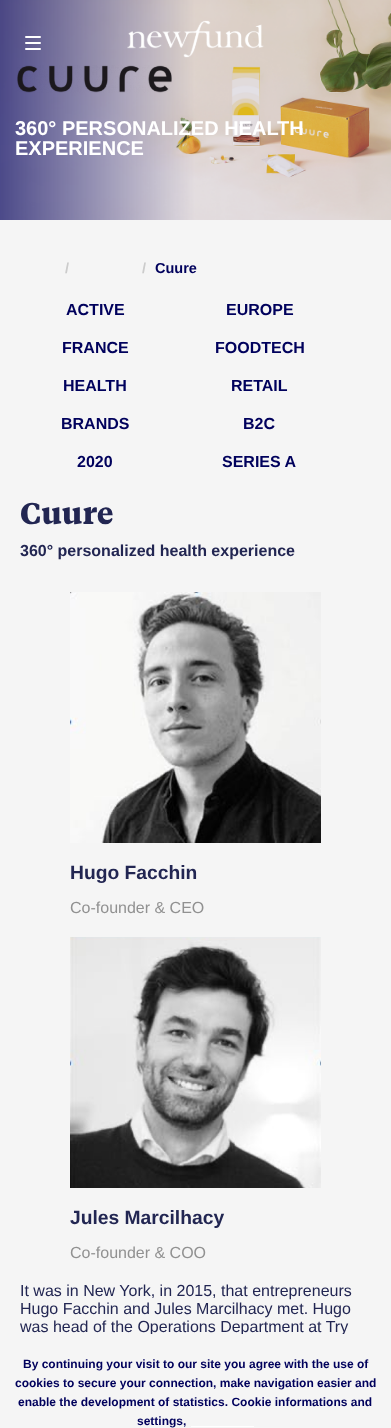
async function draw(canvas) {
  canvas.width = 391
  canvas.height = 1428
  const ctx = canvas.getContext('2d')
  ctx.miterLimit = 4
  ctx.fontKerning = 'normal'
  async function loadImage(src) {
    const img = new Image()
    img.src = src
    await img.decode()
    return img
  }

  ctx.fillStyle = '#f5f5f5'
  ctx.fillRect(0, 0, 391, 1428)
  ctx.drawImage(await loadImage('image1.png'), 0, 0, 391, 220)
  ctx.fillStyle = '#fff'
  ctx.beginPath()
  ctx.roundRect(25, 36, 16, 2, 1)
  ctx.fill()
  ctx.beginPath()
  ctx.roundRect(25, 42, 16, 2, 1)
  ctx.fill()
  ctx.beginPath()
  ctx.roundRect(25, 48, 16, 2, 1)
  ctx.fill()
  ctx.drawImage(await loadImage('image0.png'), 127, 20, 137, 38)
  ctx.drawImage(await loadImage('image2.png'), 17, 65, 155, 28)
  ctx.font = 'bold 20px Liberation Sans'
  ctx.fillText('360° PERSONALIZED HEALTH', 15, 135)
  ctx.fillText('EXPERIENCE', 15, 155)
  ctx.font = 'bold 14.5px Liberation Sans'
  ctx.fillStyle = '#ccc'
  ctx.fillText('/', 65, 273)
  ctx.fillText('/', 142, 273)
  ctx.fillStyle = '#00015c'
  ctx.fillText('Cuure', 155, 273)
  ctx.font = 'bold 16px Liberation Sans'
  ctx.fillText('ACTIVE', 66, 315)
  ctx.fillText('EUROPE', 226, 315)
  ctx.fillText('FRANCE', 62, 353)
  ctx.fillText('FOODTECH', 215, 353)
  ctx.fillText('HEALTH', 63, 391)
  ctx.fillText('RETAIL', 231, 391)
  ctx.fillText('BRANDS', 61, 429)
  ctx.fillText('B2C', 243, 429)
  ctx.fillText('2020', 77, 467)
  ctx.fillText('SERIES A', 222, 467)
  ctx.font = 'bold 30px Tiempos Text'
  ctx.fillStyle = '#222652'
  ctx.fillText('Cuure', 20, 524)
  ctx.font = 'bold 16px Liberation Sans'
  ctx.fillText('360° personalized health experience', 20, 556)
  ctx.drawImage(await loadImage('image3.png'), 70, 592, 251, 251)
  ctx.font = 'bold 19.25px Liberation Sans'
  ctx.fillText('Hugo Facchin', 70, 879)
  ctx.font = '16px Liberation Sans'
  ctx.fillStyle = '#919191'
  ctx.fillText('Co-founder & CEO', 70, 913)
  ctx.drawImage(await loadImage('image4.png'), 70, 937, 251, 251)
  ctx.font = 'bold 19.25px Liberation Sans'
  ctx.fillStyle = '#222652'
  ctx.fillText('Jules Marcilhacy', 70, 1224)
  ctx.font = '16px Liberation Sans'
  ctx.fillStyle = '#919191'
  ctx.fillText('Co-founder & COO', 70, 1258)
  ctx.fillStyle = '#222652'
  ctx.fillText('It was in New York, in 2015, that entrepreneurs', 20, 1296)
  ctx.fillText('Hugo Facchin and Jules Marcilhacy met. Hugo', 20, 1314)
  ctx.fillText('was head of the Operations Department at Try', 20, 1332)
  ctx.fillStyle = '#f5f5f5'
  ctx.fillRect(150, 1334, 194, 2)
  ctx.font = 'bold 12px Liberation Sans'
  ctx.fillStyle = '#00015c'
  ctx.fillText('By continuing your visit to our site you agree with the use of', 23, 1368)
  ctx.fillText('cookies to secure your connection, make navigation easier and', 15, 1387)
  ctx.fillText('enable the development of statistics. Cookie informations and', 18, 1406)
  ctx.fillText('settings,', 137, 1425)
  ctx.fillStyle = '#fff'
  ctx.fillRect(191, 1426, 63, 1)
}

draw(document.querySelector('canvas'))
